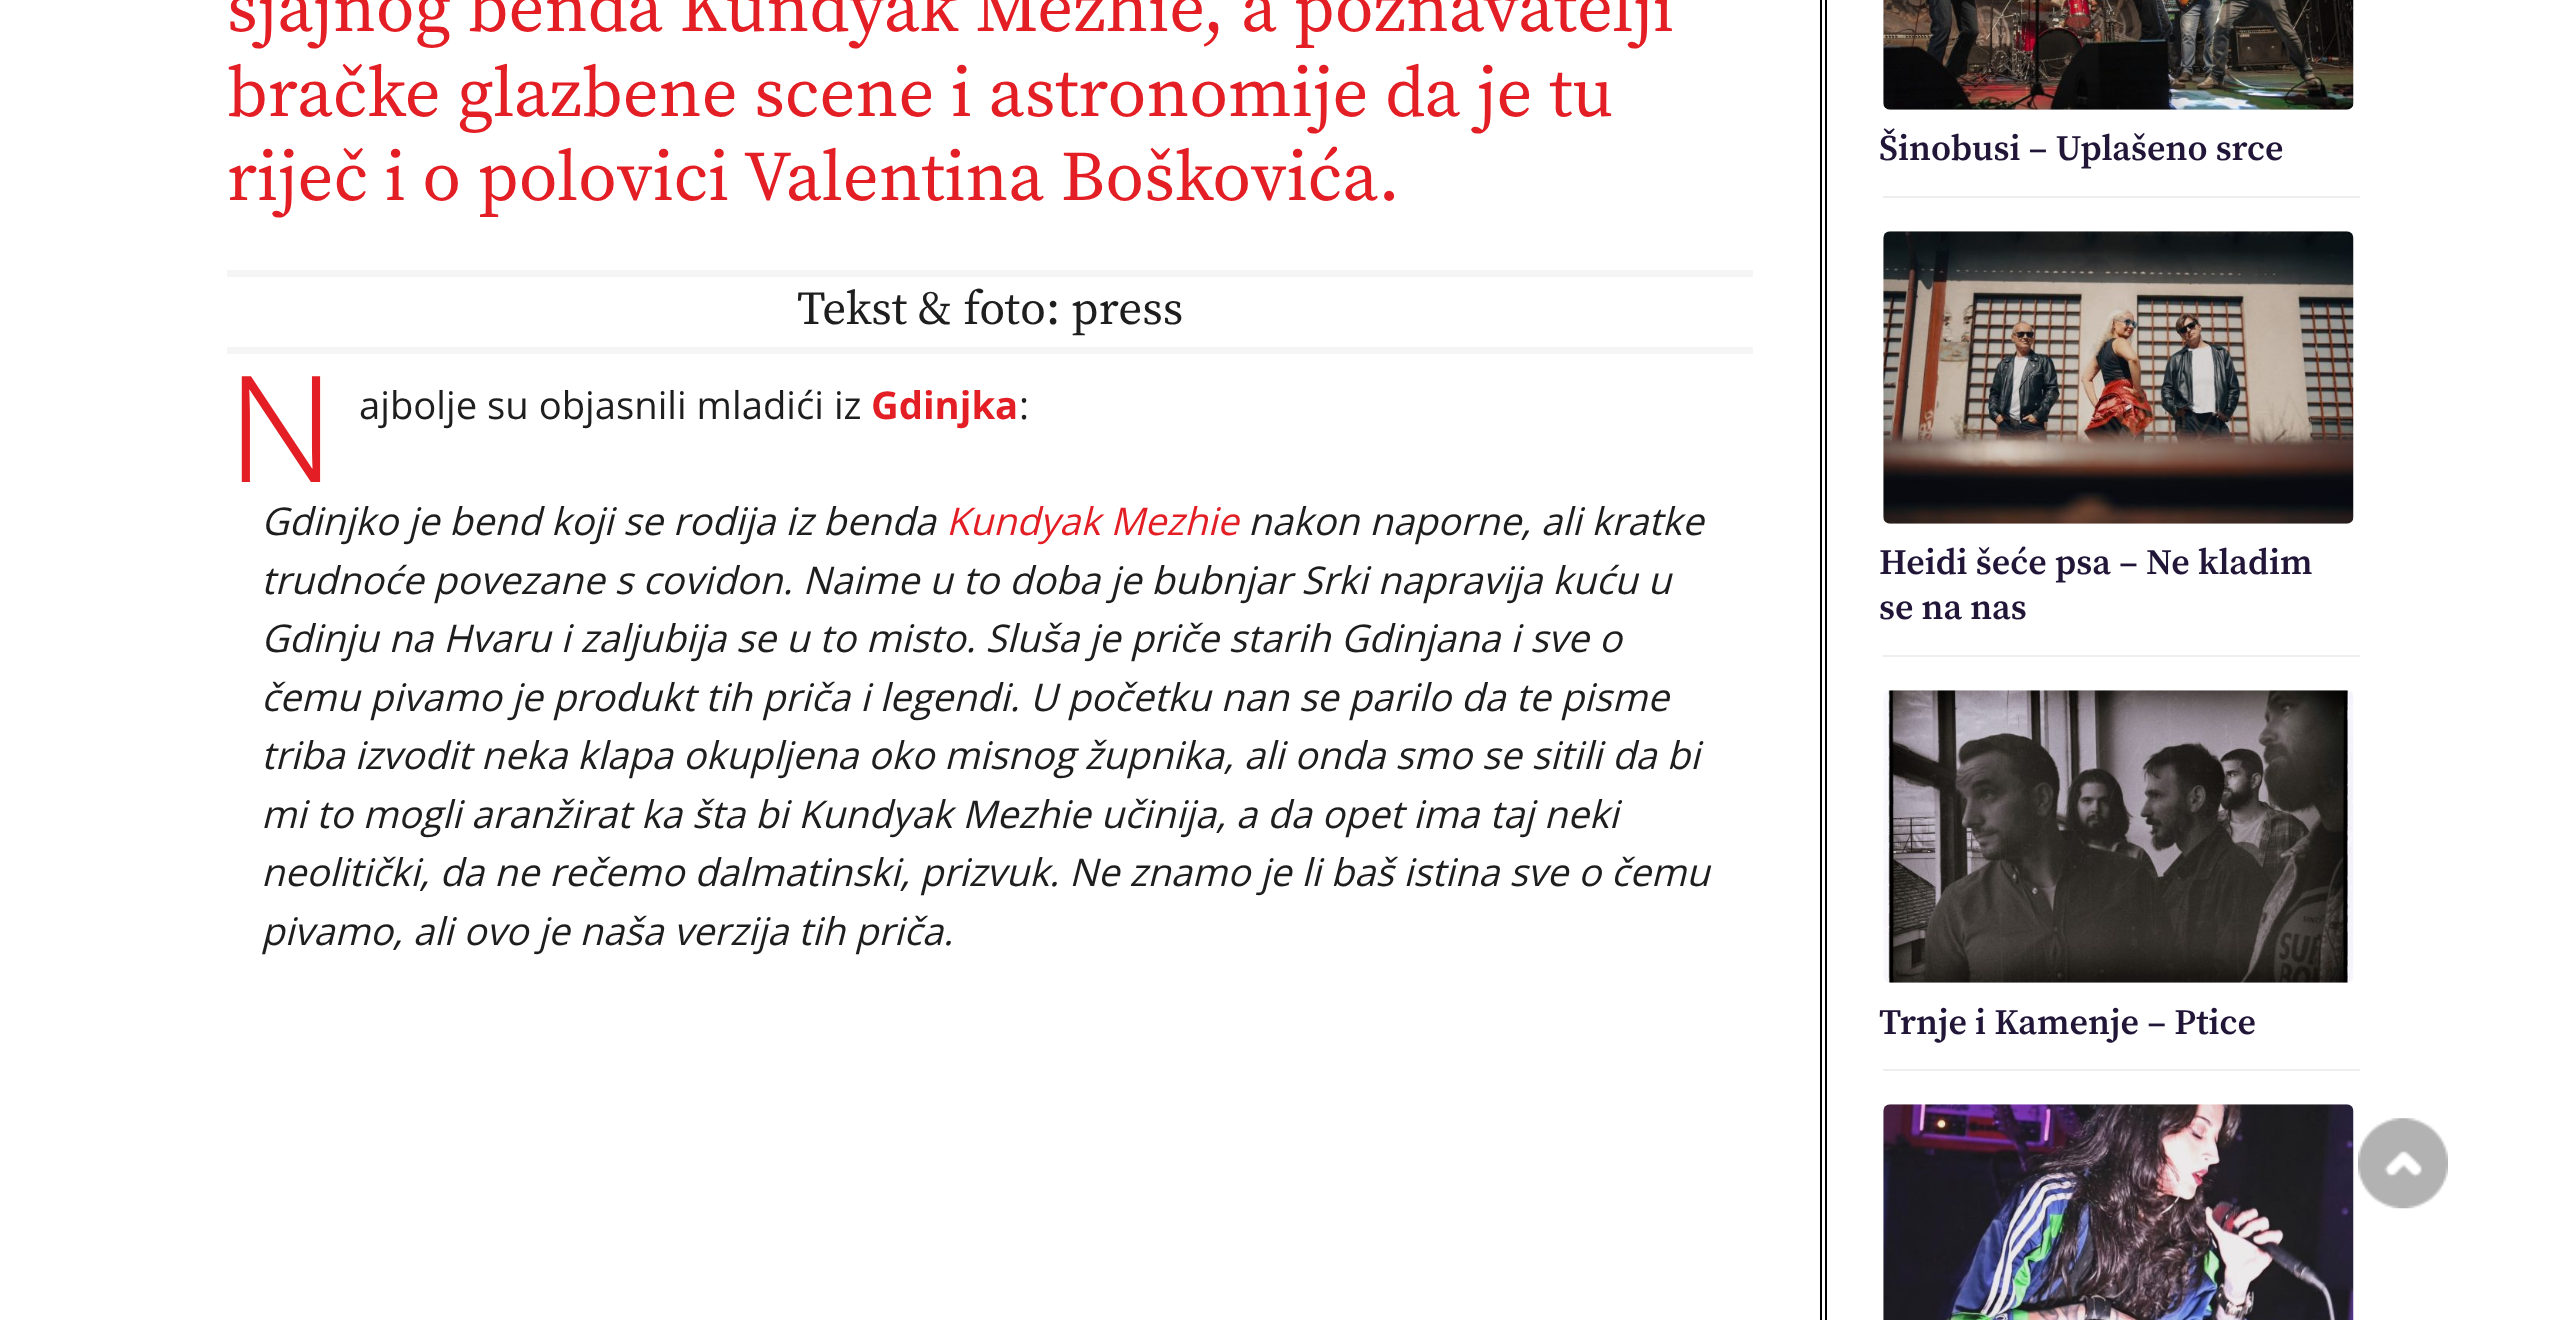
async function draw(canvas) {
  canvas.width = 2560
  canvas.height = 1320
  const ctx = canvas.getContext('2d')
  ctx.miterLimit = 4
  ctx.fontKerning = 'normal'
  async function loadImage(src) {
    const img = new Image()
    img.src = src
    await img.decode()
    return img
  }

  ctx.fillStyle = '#fff'
  ctx.fillRect(0, 0, 2560, 1320)
  ctx.font = '70.75px Source Serif Pro'
  ctx.fillStyle = '#e31e24'
  ctx.fillText('sjajnog benda Kundyak Mezhie, a poznavatelji', 227, 31)
  ctx.fillText('bračke glazbene scene i astronomije da je tu', 227, 116)
  ctx.fillText('riječ i o polovici Valentina Boškovića.', 227, 200)
  ctx.fillStyle = '#f5f5f5'
  ctx.fillRect(227, 270, 1526, 7)
  ctx.fillRect(227, 347, 1526, 7)
  ctx.font = '47.25px Source Serif Pro'
  ctx.fillStyle = '#1e1e1e'
  ctx.fillText('Tekst & foto: press', 797, 324)
  ctx.font = '300 148px Noto Sans'
  ctx.fillStyle = '#e31e24'
  ctx.fillText('N', 227, 482)
  ctx.font = '38.25px Open Sans'
  ctx.fillStyle = '#1e1e1e'
  ctx.fillText('ajbolje su objasnili mladići iz', 359, 419)
  ctx.font = 'bold 38.25px Open Sans'
  ctx.fillStyle = '#e31e24'
  ctx.fillText('Gdinjka', 871, 419)
  ctx.font = '38.25px Open Sans'
  ctx.fillStyle = '#1e1e1e'
  ctx.fillText(':', 1019, 419)
  ctx.font = 'italic 38.25px Open Sans'
  ctx.fillText('Gdinjko je bend koji se rodija iz benda', 261, 535)
  ctx.fillStyle = '#e31e24'
  ctx.fillText('Kundyak Mezhie', 946, 535)
  ctx.fillStyle = '#1e1e1e'
  ctx.fillText('nakon naporne, ali kratke', 1248, 535)
  ctx.fillText('trudnoće povezane s covidon. Naime u to doba je bubnjar Srki napravija kuću u', 261, 594)
  ctx.fillText('Gdinju na Hvaru i zaljubija se u to misto. Sluša je priče starih Gdinjana i sve o', 261, 652)
  ctx.fillText('čemu pivamo je produkt tih priča i legendi. U početku nan se parilo da te pisme', 261, 711)
  ctx.fillText('triba izvodit neka klapa okupljena oko misnog župnika, ali onda smo se sitili da bi', 261, 769)
  ctx.fillText('mi to mogli aranžirat ka šta bi Kundyak Mezhie učinija, a da opet ima taj neki', 261, 828)
  ctx.fillText('neolitički, da ne rečemo dalmatinski, prizvuk. Ne znamo je li baš istina sve o čemu', 261, 886)
  ctx.fillText('pivamo, ali ovo je naša verzija tih priča.', 261, 945)
  ctx.fillStyle = '#000'
  ctx.fillRect(1820, 0, 2, 1320)
  ctx.fillRect(1825, 0, 2, 1320)
  ctx.fillStyle = '#eee'
  ctx.fillRect(1883, 196, 477, 2)
  ctx.drawImage(await loadImage('image0.png'), 1883, 0, 471, 110)
  ctx.font = '600 36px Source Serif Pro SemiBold'
  ctx.fillStyle = '#221638'
  ctx.fillText('Šinobusi – Uplašeno srce', 1879, 160)
  ctx.fillStyle = '#eee'
  ctx.fillRect(1883, 655, 477, 2)
  ctx.drawImage(await loadImage('image1.png'), 1883, 231, 471, 293)
  ctx.fillStyle = '#221638'
  ctx.fillText('Heidi šeće psa – Ne kladim', 1879, 574)
  ctx.fillText('se na nas', 1879, 619)
  ctx.fillStyle = '#eee'
  ctx.fillRect(1883, 1069, 477, 2)
  ctx.drawImage(await loadImage('image2.png'), 1883, 690, 471, 293)
  ctx.fillStyle = '#221638'
  ctx.fillText('Trnje i Kamenje – Ptice', 1879, 1034)
  ctx.drawImage(await loadImage('image3.png'), 1883, 1104, 471, 216)
  ctx.drawImage(await loadImage('image4.png'), 2358, 1118, 90, 91)
}

draw(document.querySelector('canvas'))
